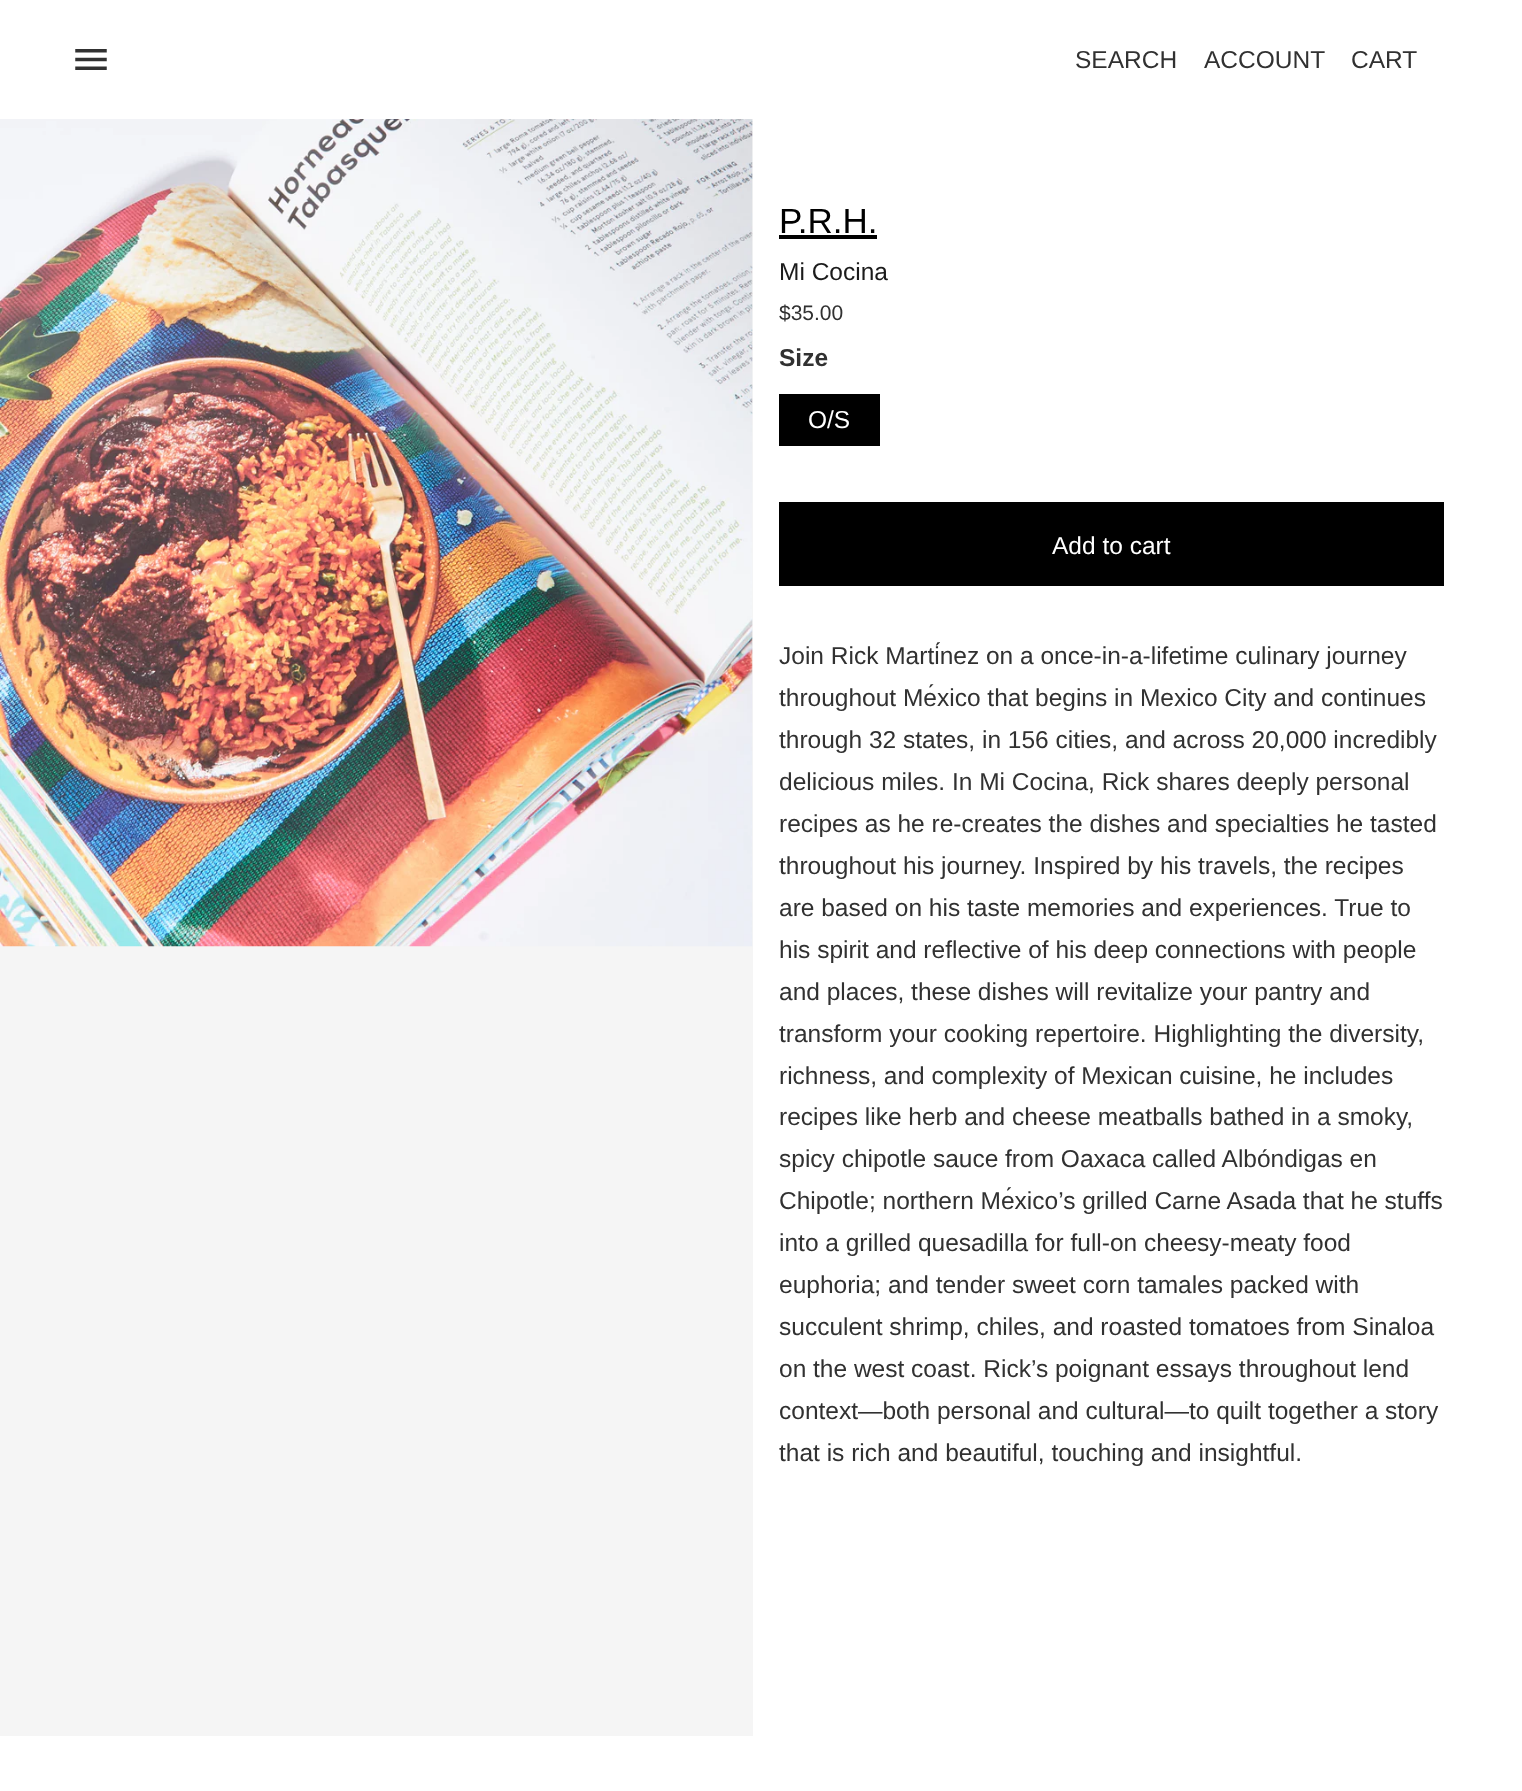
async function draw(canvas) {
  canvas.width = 1522
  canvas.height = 1791
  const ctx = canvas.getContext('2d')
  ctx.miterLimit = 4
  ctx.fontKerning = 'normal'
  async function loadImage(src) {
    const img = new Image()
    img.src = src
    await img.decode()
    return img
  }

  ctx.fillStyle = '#fff'
  ctx.fillRect(0, 0, 1522, 1791)
  ctx.drawImage(await loadImage('image0.png'), 75, 49, 32, 21)
  ctx.font = '24.5px Liberation Sans'
  ctx.fillStyle = '#313131'
  ctx.fillText('SEARCH', 1075, 68)
  ctx.fillText('ACCOUNT', 1204, 68)
  ctx.fillText('CART', 1351, 68)
  ctx.fillStyle = '#f5f5f5'
  ctx.fillRect(0, 119, 753, 1617)
  ctx.drawImage(await loadImage('image1.png'), 0, 119, 753, 828)
  ctx.font = '35px Liberation Sans'
  ctx.fillStyle = '#000'
  ctx.fillText('P.R.H.', 779, 233)
  ctx.fillRect(779, 235, 98, 4)
  ctx.font = '24.5px Liberation Sans'
  ctx.fillStyle = '#1b1b1b'
  ctx.fillText('Mi Cocina', 779, 280)
  ctx.font = '21px Liberation Sans'
  ctx.fillStyle = '#313131'
  ctx.fillText('$35.00', 779, 320)
  ctx.font = 'bold 24.5px Liberation Sans'
  ctx.fillText('Size', 779, 366)
  ctx.fillStyle = '#000'
  ctx.fillRect(779, 394, 101, 52)
  ctx.font = '24.5px Liberation Sans'
  ctx.fillStyle = '#fff'
  ctx.fillText('O/S', 808, 428)
  ctx.fillStyle = '#000'
  ctx.fillRect(779, 502, 665, 84)
  ctx.fillStyle = '#fff'
  ctx.fillText('Add to cart', 1052, 554)
  ctx.fillStyle = '#313131'
  ctx.fillText('Join Rick Martínez on a once-in-a-lifetime culinary journey', 779, 664)
  ctx.fillText('throughout México that begins in Mexico City and continues', 779, 706)
  ctx.fillText('through 32 states, in 156 cities, and across 20,000 incredibly', 779, 748)
  ctx.fillText('delicious miles. In Mi Cocina, Rick shares deeply personal', 779, 790)
  ctx.fillText('recipes as he re-creates the dishes and specialties he tasted', 779, 832)
  ctx.fillText('throughout his journey. Inspired by his travels, the recipes', 779, 874)
  ctx.fillText('are based on his taste memories and experiences. True to', 779, 916)
  ctx.fillText('his spirit and reflective of his deep connections with people', 779, 958)
  ctx.fillText('and places, these dishes will revitalize your pantry and', 779, 1000)
  ctx.fillText('transform your cooking repertoire. Highlighting the diversity,', 779, 1042)
  ctx.fillText('richness, and complexity of Mexican cuisine, he includes', 779, 1084)
  ctx.fillText('recipes like herb and cheese meatballs bathed in a smoky,', 779, 1125)
  ctx.fillText('spicy chipotle sauce from Oaxaca called Albóndigas en', 779, 1167)
  ctx.fillText('Chipotle; northern México’s grilled Carne Asada that he stuffs', 779, 1209)
  ctx.fillText('into a grilled quesadilla for full-on cheesy-meaty food', 779, 1251)
  ctx.fillText('euphoria; and tender sweet corn tamales packed with', 779, 1293)
  ctx.fillText('succulent shrimp, chiles, and roasted tomatoes from Sinaloa', 779, 1335)
  ctx.fillText('on the west coast. Rick’s poignant essays throughout lend', 779, 1377)
  ctx.fillText('context—both personal and cultural—to quilt together a story', 779, 1419)
  ctx.fillText('that is rich and beautiful, touching and insightful.', 779, 1461)
}

draw(document.querySelector('canvas'))
